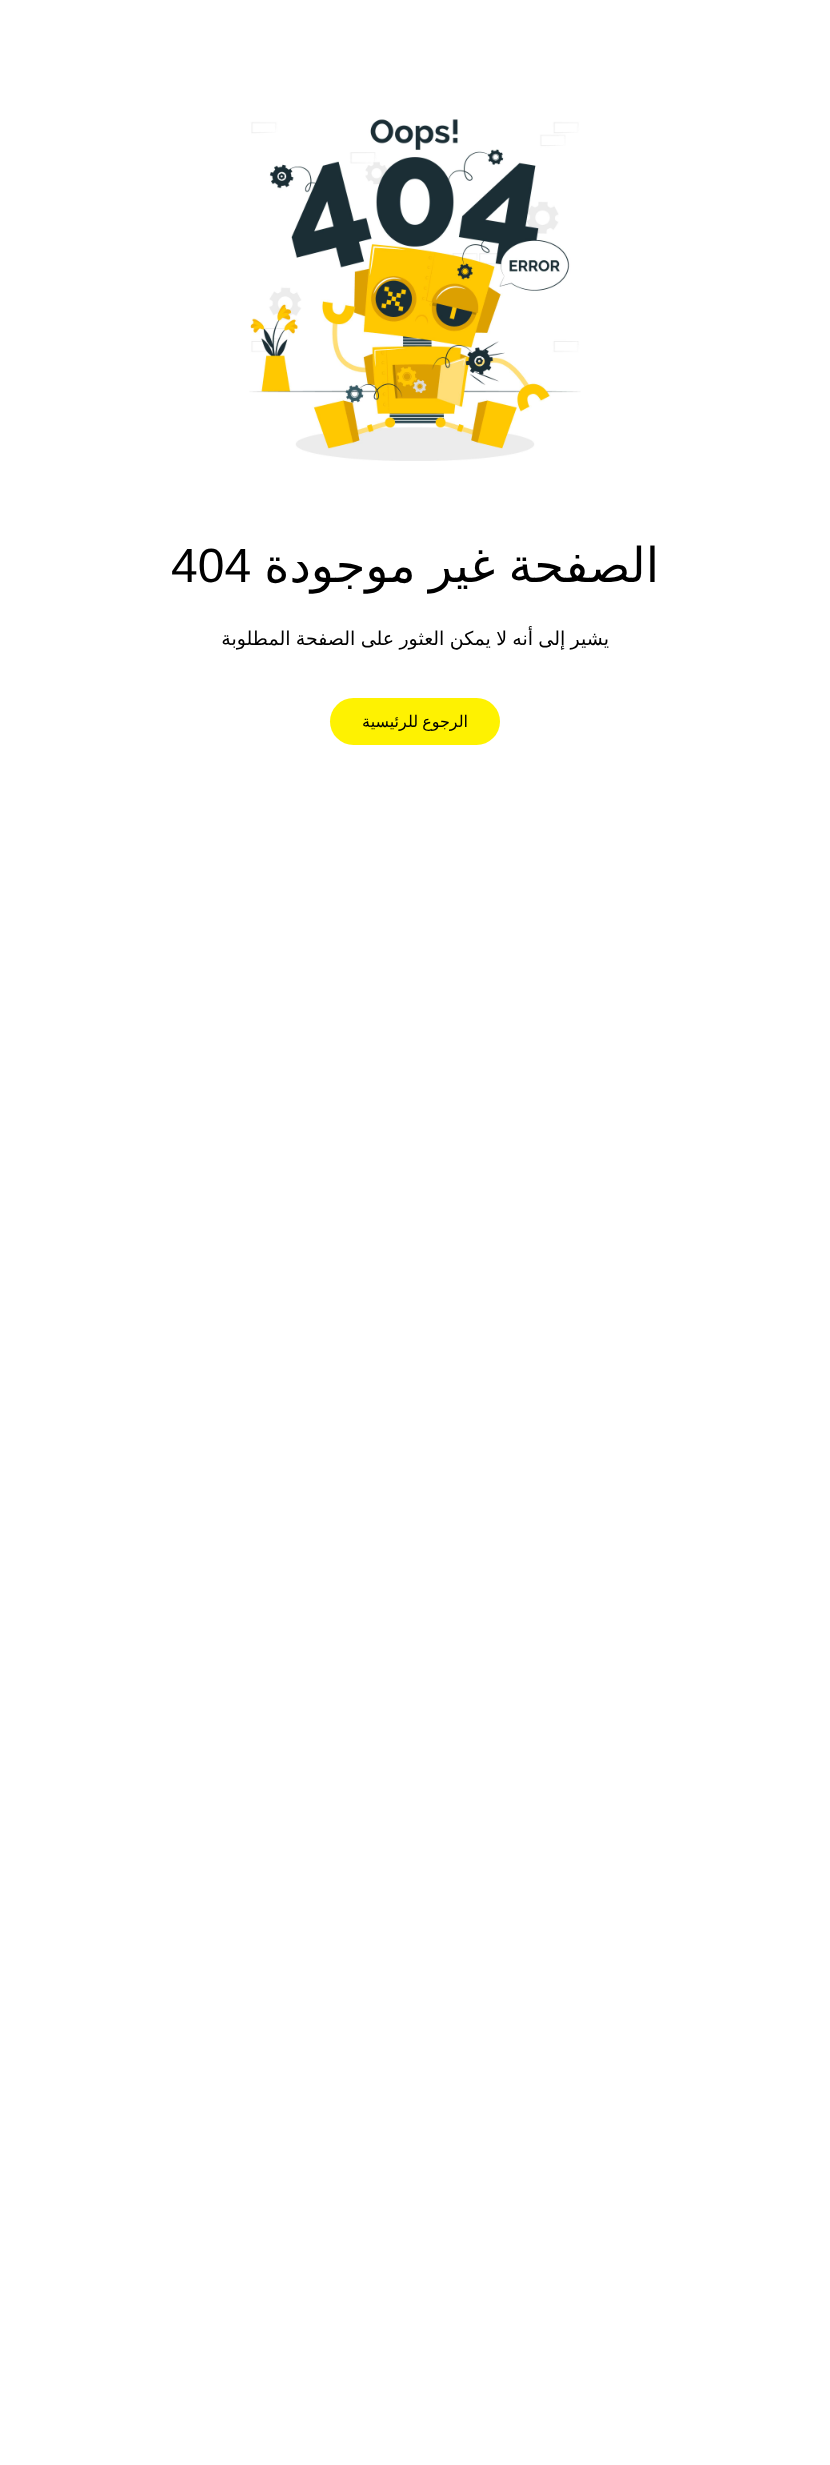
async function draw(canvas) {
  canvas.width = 830
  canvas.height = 2465
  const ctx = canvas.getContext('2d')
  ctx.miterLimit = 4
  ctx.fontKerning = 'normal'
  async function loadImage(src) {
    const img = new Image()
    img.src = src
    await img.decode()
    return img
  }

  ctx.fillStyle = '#fff'
  ctx.fillRect(0, 0, 830, 2465)
  ctx.drawImage(await loadImage('image0.png'), 249, 119, 332, 342)
  ctx.wordSpacing = '-2px'
  ctx.direction = 'rtl'
  ctx.font = '48px DejaVu Sans'
  ctx.fillStyle = '#000'
  ctx.fillText('الصفحة غير موجودة', 659, 582)
  ctx.wordSpacing = '0px'
  ctx.direction = 'ltr'
  ctx.font = '48px Liberation Sans'
  ctx.fillText('404', 171, 582)
  ctx.wordSpacing = '-0.75px'
  ctx.direction = 'rtl'
  ctx.font = '19px DejaVu Sans'
  ctx.fillText('يشير إلى أنه لا يمكن العثور على الصفحة المطلوبة', 609, 645)
  ctx.fillStyle = '#fef201'
  ctx.beginPath()
  ctx.roundRect(330, 698, 170, 47, 23.5)
  ctx.fill()
  ctx.wordSpacing = '-1px'
  ctx.font = '16px DejaVu Sans'
  ctx.fillStyle = '#000'
  ctx.fillText('الرجوع للرئيسية', 468, 727)
}

draw(document.querySelector('canvas'))
